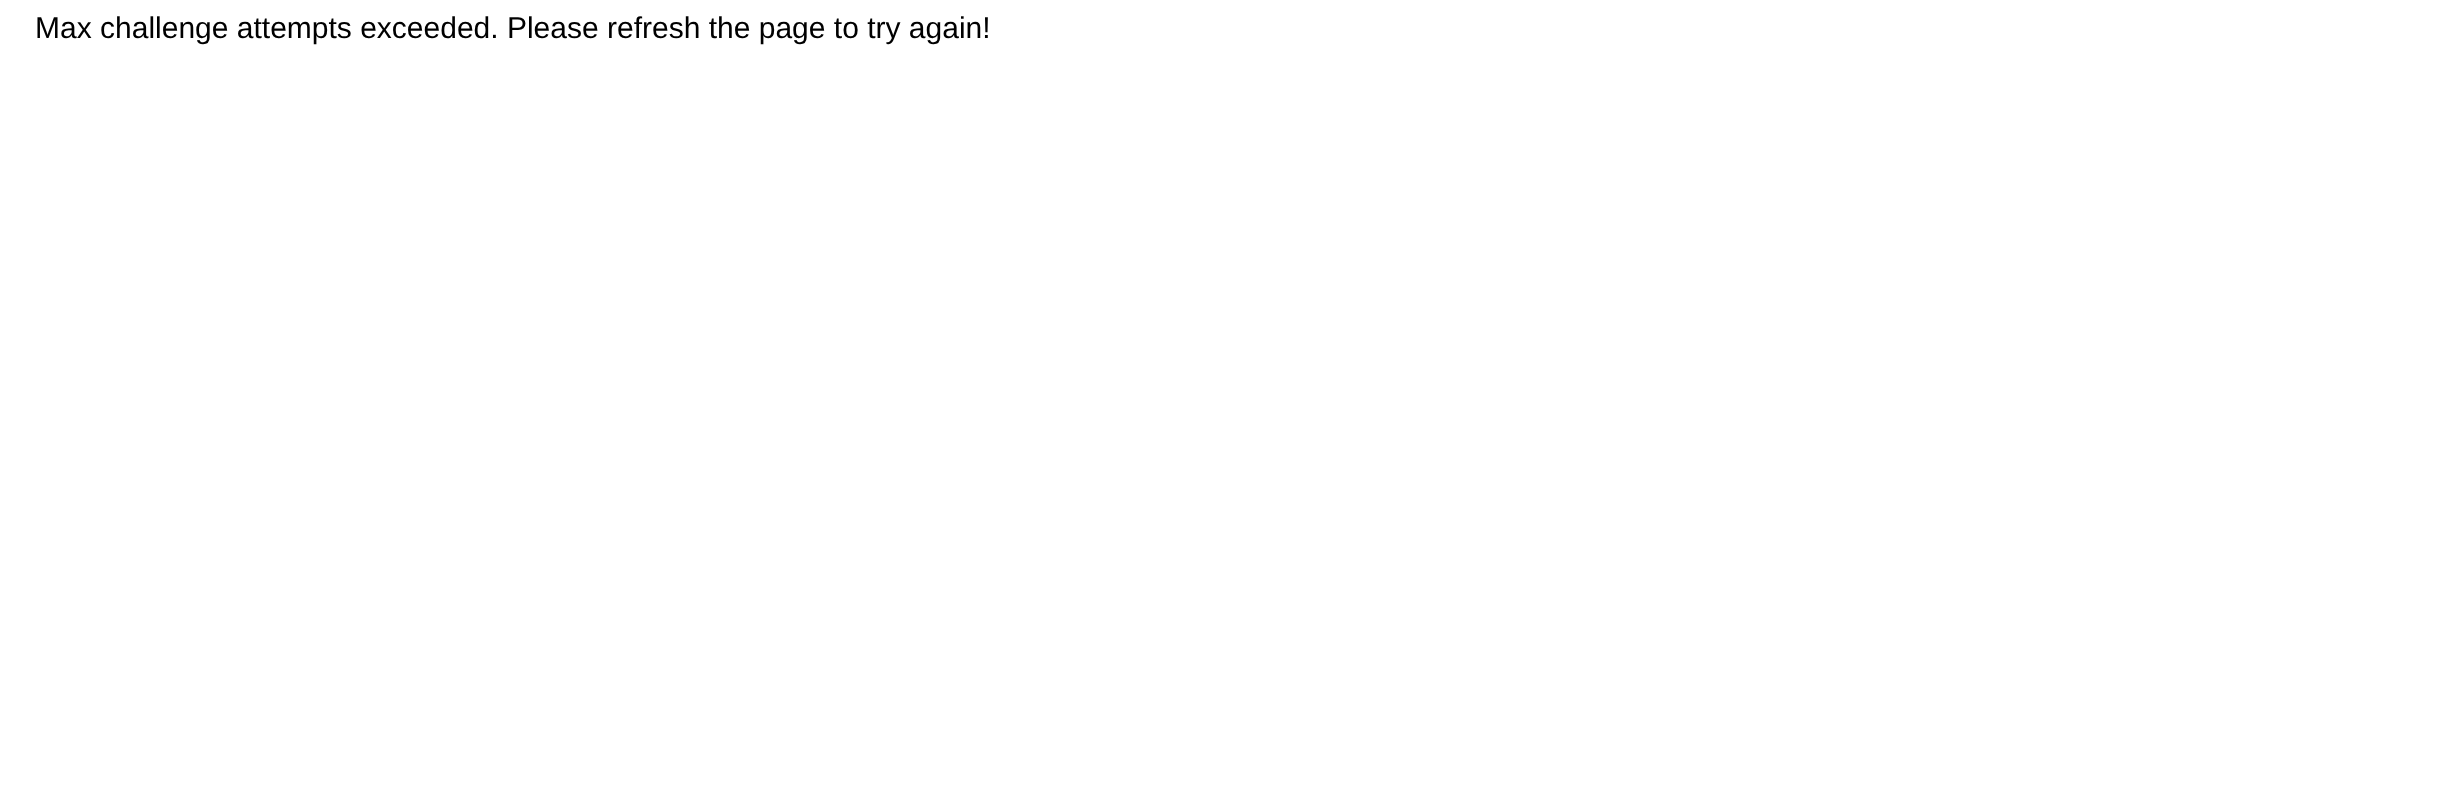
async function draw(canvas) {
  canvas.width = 2441
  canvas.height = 790
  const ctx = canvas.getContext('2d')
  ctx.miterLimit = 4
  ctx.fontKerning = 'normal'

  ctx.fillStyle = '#fff'
  ctx.fillRect(0, 0, 2441, 790)
  ctx.font = '30px Liberation Sans'
  ctx.fillStyle = '#000'
  ctx.fillText('Max challenge attempts exceeded. Please refresh the page to try again!', 35, 38)
}

draw(document.querySelector('canvas'))
